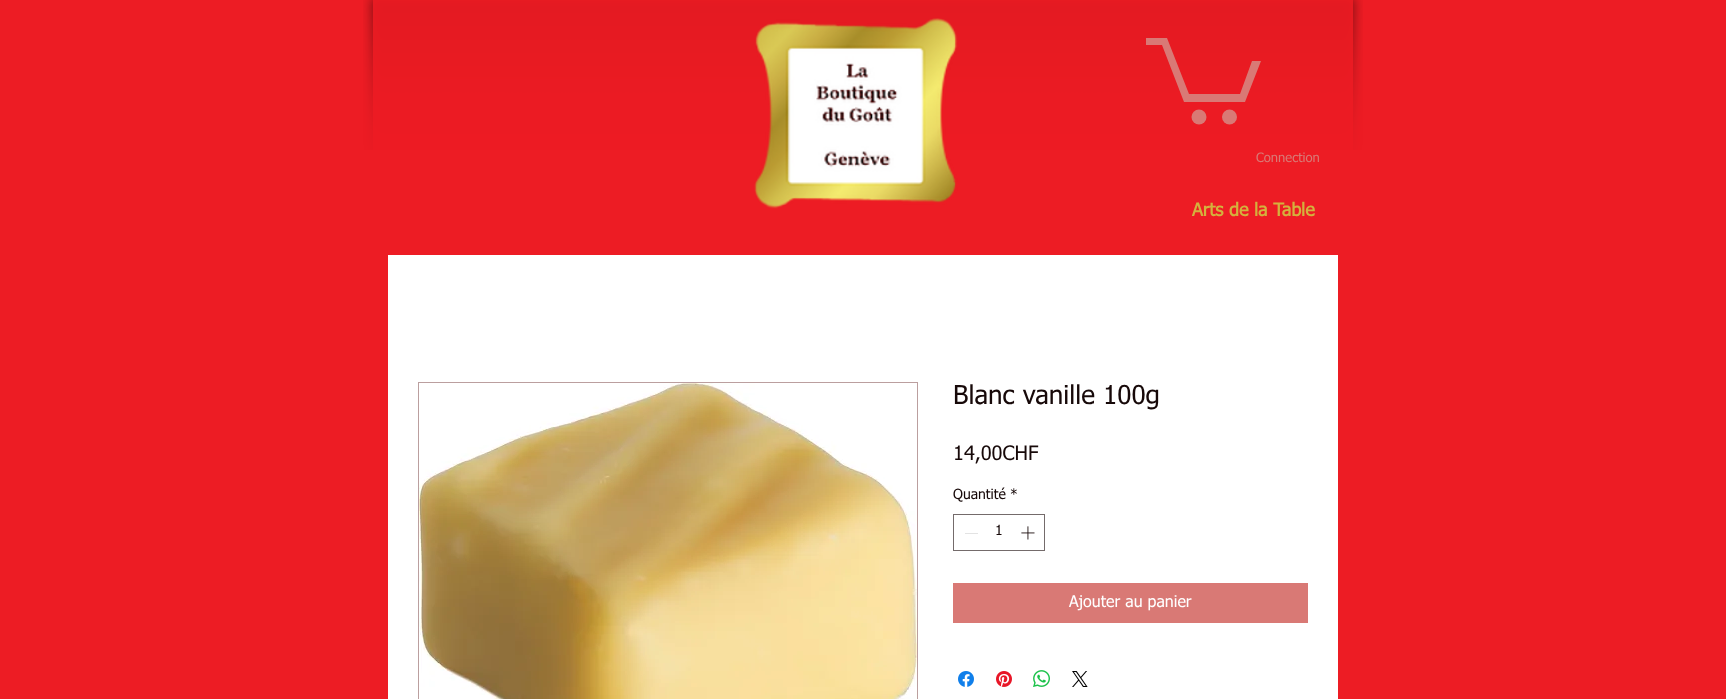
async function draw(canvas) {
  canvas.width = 1726
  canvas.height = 699
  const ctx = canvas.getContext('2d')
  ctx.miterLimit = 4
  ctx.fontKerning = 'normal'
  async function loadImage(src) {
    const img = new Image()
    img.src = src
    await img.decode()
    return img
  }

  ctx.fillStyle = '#ed1c24'
  ctx.fillRect(0, 0, 1726, 699)
  ctx.drawImage(await loadImage('image0.png'), 363, 0, 45, 150)
  ctx.drawImage(await loadImage('image1.png'), 408, 0, 910, 150)
  ctx.drawImage(await loadImage('image2.png'), 1318, 0, 45, 150)
  ctx.fillStyle = '#ed1c24e6'
  ctx.fillRect(373, 0, 980, 150)
  ctx.drawImage(await loadImage('image3.png'), 754, 18, 204, 191)
  ctx.fillStyle = '#d97975'
  ctx.beginPath()
  ctx.moveTo(1261, 61)
  ctx.lineTo(1245, 102)
  ctx.lineTo(1184, 102)
  ctx.lineTo(1162, 45)
  ctx.lineTo(1146, 45)
  ctx.lineTo(1146, 38)
  ctx.lineTo(1167, 38)
  ctx.lineTo(1189, 94)
  ctx.lineTo(1240, 94)
  ctx.lineTo(1252, 61)
  ctx.fill()
  ctx.beginPath()
  ctx.arc(1229.5, 117, 7.5, 0, 2 * Math.PI)
  ctx.fill()
  ctx.beginPath()
  ctx.arc(1199, 117, 7.5, 0, 2 * Math.PI)
  ctx.fill()
  ctx.font = '13px tahoma'
  ctx.fillText('Connection', 1256, 162)
  ctx.font = 'bold 18px tahoma'
  ctx.fillStyle = '#d4b13d'
  ctx.fillText('Arts de la Table', 1192, 216)
  ctx.fillStyle = '#fff'
  ctx.fillRect(388, 255, 950, 444)
  ctx.strokeStyle = '#bb9f9f'
  ctx.strokeRect(418.5, 382.5, 499, 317)
  ctx.drawImage(await loadImage('image4.png'), 419, 383, 498, 316)
  ctx.font = '26px tahoma'
  ctx.fillStyle = '#170909'
  ctx.fillText('Blanc vanille 100g', 953, 404)
  ctx.font = '20px tahoma'
  ctx.fillText('14,00CHF', 953, 460)
  ctx.font = '14px tahoma'
  ctx.fillText('Quantité', 953, 499)
  ctx.fillText('*', 1010, 499)
  ctx.strokeStyle = '#746b6b'
  ctx.strokeRect(953.5, 514.5, 91, 36)
  ctx.fillStyle = '#e3e3e3'
  ctx.fillRect(965, 533, 13, 1)
  ctx.fillStyle = '#170909'
  ctx.fillText('1', 995, 535)
  ctx.drawImage(await loadImage('image5.png'), 1021, 526, 14, 14)
  ctx.fillStyle = '#d97975'
  ctx.fillRect(953, 583, 355, 40)
  ctx.font = '16px tahoma'
  ctx.fillStyle = '#fff'
  ctx.fillText('Ajouter au panier', 1069, 607)
  ctx.drawImage(await loadImage('image6.png'), 958, 671, 16, 16)
  ctx.drawImage(await loadImage('image7.png'), 996, 671, 16, 16)
  ctx.drawImage(await loadImage('image8.png'), 1033, 670, 17, 17)
  ctx.drawImage(await loadImage('image9.png'), 1072, 671, 16, 16)
}

draw(document.querySelector('canvas'))
